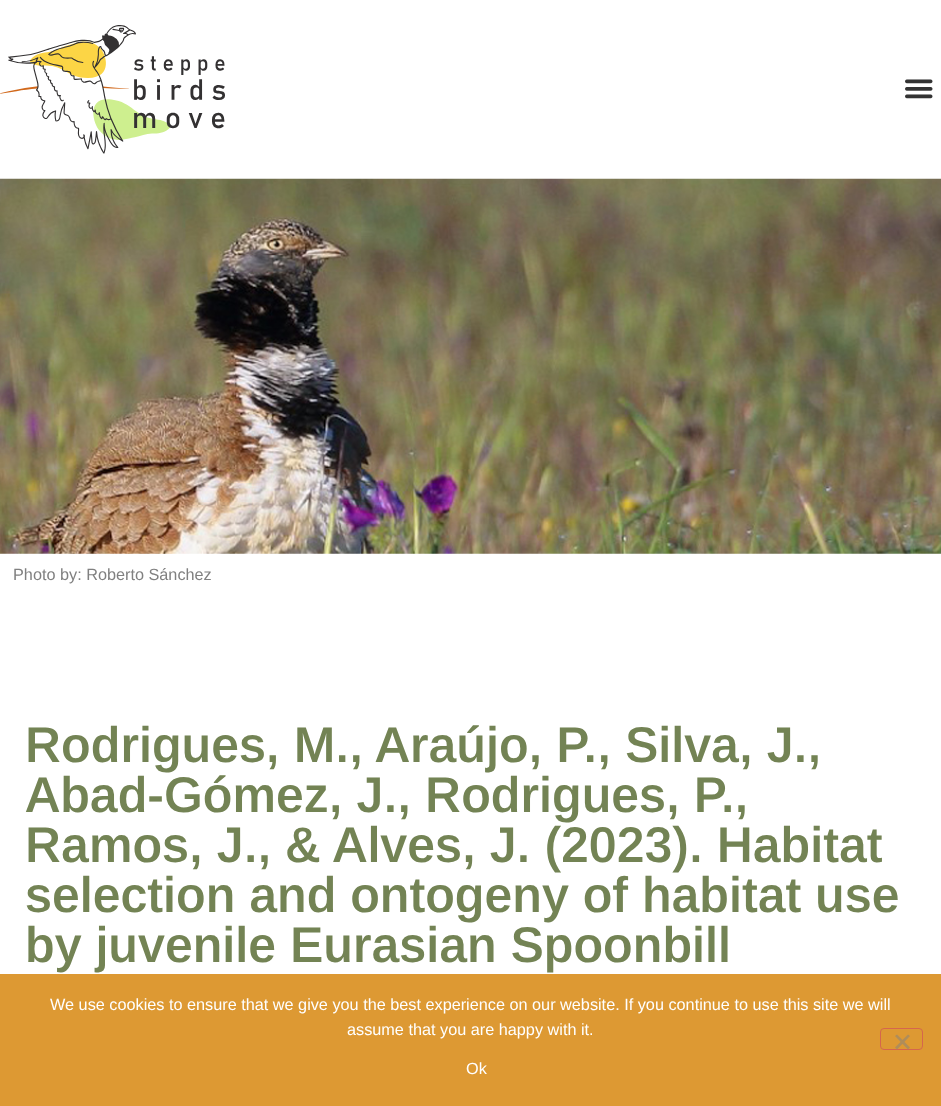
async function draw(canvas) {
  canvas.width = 941
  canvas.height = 1106
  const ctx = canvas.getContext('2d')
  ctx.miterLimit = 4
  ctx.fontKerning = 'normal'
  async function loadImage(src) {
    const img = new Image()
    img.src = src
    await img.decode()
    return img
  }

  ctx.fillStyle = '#fff'
  ctx.fillRect(0, 0, 941, 1106)
  ctx.drawImage(await loadImage('image0.png'), 0, 25, 225, 129)
  ctx.drawImage(await loadImage('image1.png'), 905, 79, 28, 20)
  ctx.drawImage(await loadImage('image2.png'), 0, 178, 941, 376)
  ctx.font = '16.25px Arimo'
  ctx.fillStyle = '#808080'
  ctx.fillText('Photo by: Roberto Sánchez', 13, 580)
  ctx.font = '600 50px Arimo'
  ctx.fillStyle = '#738354'
  ctx.fillText('Rodrigues, M., Araújo, P., Silva, J.,', 25, 762)
  ctx.fillText('Abad-Gómez, J., Rodrigues, P.,', 25, 812)
  ctx.fillText('Ramos, J., & Alves, J. (2023). Habitat', 25, 862)
  ctx.fillText('selection and ontogeny of habitat use', 25, 912)
  ctx.fillText('by juvenile Eurasian Spoonbill', 25, 962)
  ctx.fillStyle = '#d93'
  ctx.fillRect(0, 974, 941, 132)
  ctx.font = '16.25px Liberation Sans'
  ctx.fillStyle = '#fff'
  ctx.fillText('We use cookies to ensure that we give you the best experience on our website. If you continue to use this site we will', 50, 1010)
  ctx.fillText('assume that you are happy with it.', 347, 1035)
  ctx.beginPath()
  ctx.roundRect(880.5, 1028.5, 42, 21, 3.5)
  ctx.strokeStyle = '#d5664d'
  ctx.stroke()
  ctx.fillStyle = '#af8d5a'
  ctx.beginPath()
  ctx.moveTo(908, 1034.5)
  ctx.lineTo(910, 1036)
  ctx.lineTo(897, 1049.5)
  ctx.lineTo(895, 1047.5)
  ctx.closePath()
  ctx.fill()
  ctx.beginPath()
  ctx.moveTo(895, 1036)
  ctx.lineTo(897, 1034.5)
  ctx.lineTo(910, 1047.5)
  ctx.lineTo(908, 1049.5)
  ctx.closePath()
  ctx.fill()
  ctx.fillStyle = '#fff'
  ctx.fillText('Ok', 466, 1074)
}

draw(document.querySelector('canvas'))
